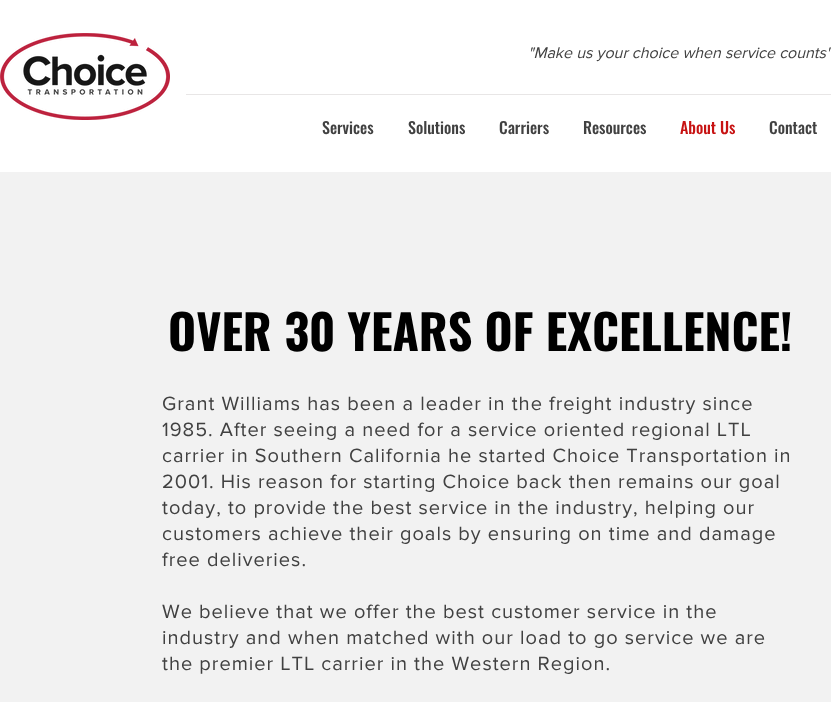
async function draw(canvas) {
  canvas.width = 831
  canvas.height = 702
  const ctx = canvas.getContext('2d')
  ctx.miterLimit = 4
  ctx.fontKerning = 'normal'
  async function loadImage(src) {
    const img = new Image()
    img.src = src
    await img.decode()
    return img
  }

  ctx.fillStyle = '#fff'
  ctx.fillRect(0, 0, 831, 702)
  ctx.drawImage(await loadImage('image0.png'), 0, 33, 170, 87)
  ctx.font = 'italic 16px "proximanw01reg"'
  ctx.fillStyle = '#414141'
  ctx.fillText('"Make us your choice when service counts"', 528, 58)
  ctx.fillStyle = '#e8e6e6'
  ctx.fillRect(186, 94, 645, 1)
  ctx.font = '500 16px Oswald'
  ctx.fillStyle = '#414141'
  ctx.fillText('Services', 322, 134)
  ctx.fillText('Solutions', 408, 134)
  ctx.fillText('Carriers', 499, 134)
  ctx.fillText('Resources', 583, 134)
  ctx.fillStyle = '#c71212'
  ctx.fillText('About Us', 680, 134)
  ctx.fillStyle = '#414141'
  ctx.fillText('Contact', 769, 134)
  ctx.fillStyle = '#f2f2f2'
  ctx.fillRect(0, 172, 831, 530)
  ctx.font = 'bold 48px Oswald'
  ctx.fillStyle = '#000'
  ctx.fillText('OVER 30 YEARS OF EXCELLENCE!', 168, 351)
  ctx.letterSpacing = '1px'
  ctx.font = '20px "proximanw01reg"'
  ctx.fillStyle = '#414141'
  ctx.fillText('Grant Williams has been a leader in the freight industry since', 162, 410)
  ctx.fillText('1985. After seeing a need for a service oriented regional LTL', 162, 436)
  ctx.fillText('carrier in Southern California he started Choice Transportation in', 162, 462)
  ctx.fillText('2001. His reason for starting Choice back then remains our goal', 162, 488)
  ctx.fillText('today, to provide the best service in the industry, helping our', 162, 514)
  ctx.fillText('customers achieve their goals by ensuring on time and damage', 162, 540)
  ctx.fillText('free deliveries.', 162, 566)
  ctx.fillText('We believe that we offer the best customer service in the', 162, 618)
  ctx.fillText('industry and when matched with our load to go service we are', 162, 644)
  ctx.fillText('the premier LTL carrier in the Western Region.', 162, 670)
}

draw(document.querySelector('canvas'))
